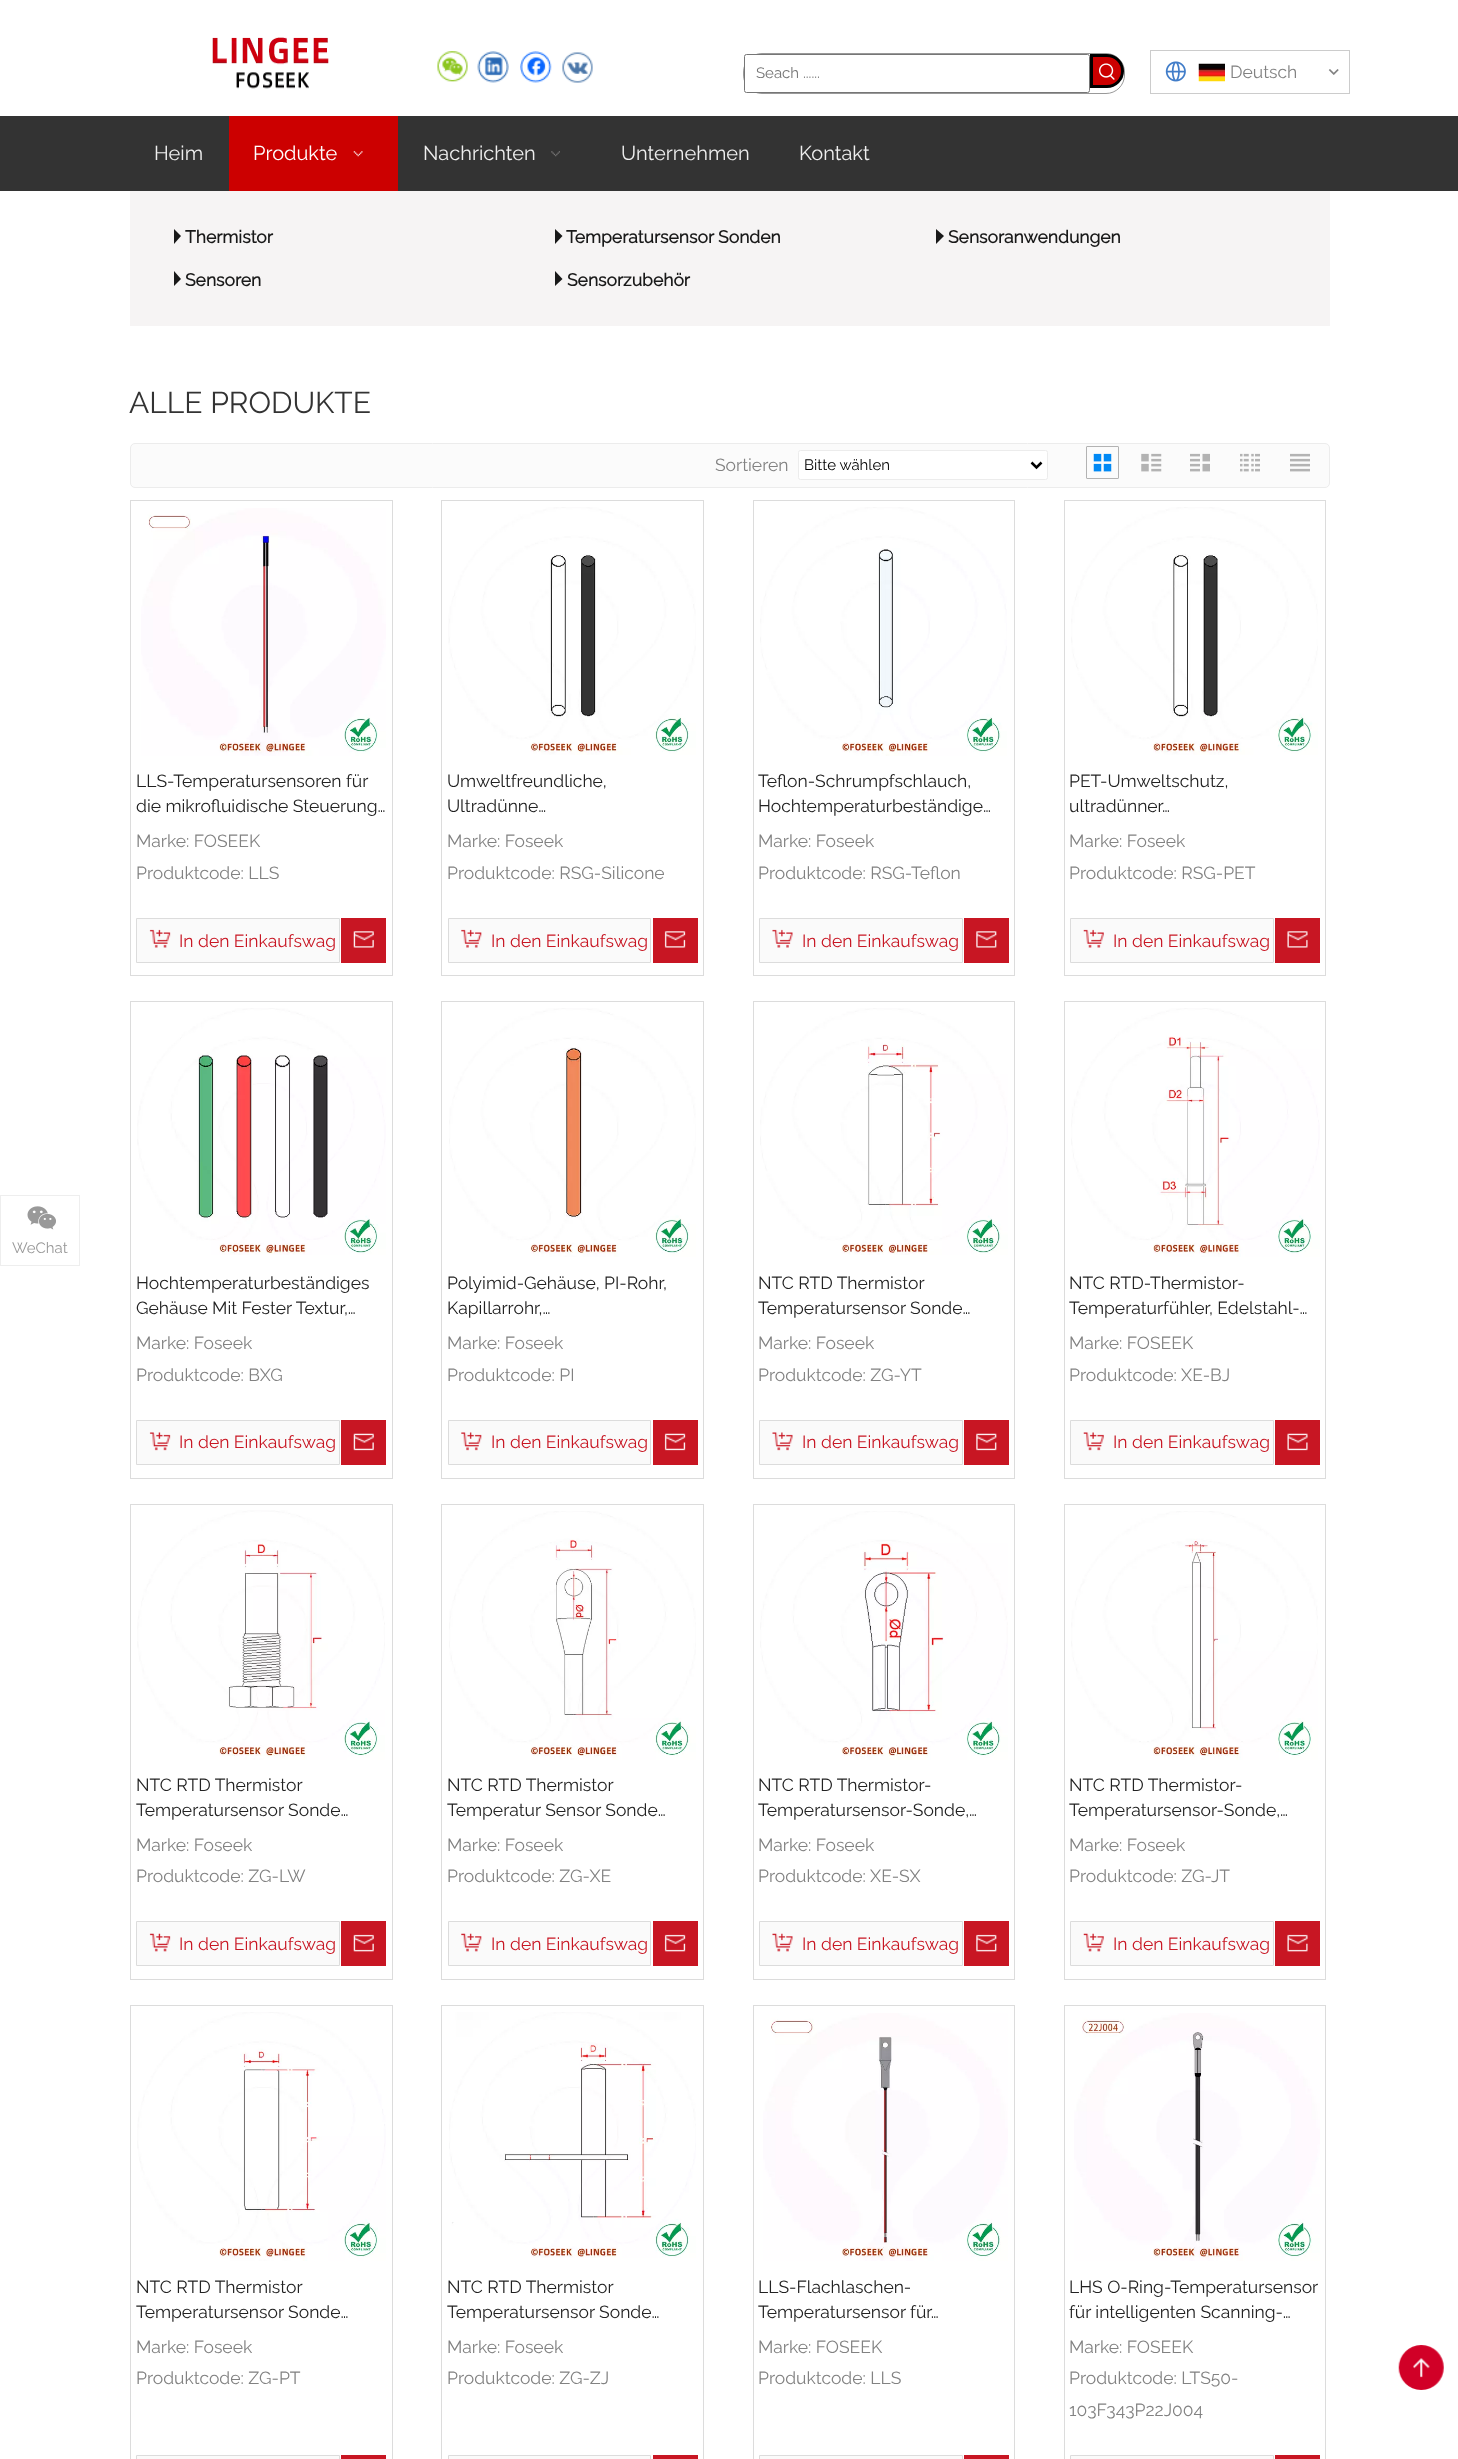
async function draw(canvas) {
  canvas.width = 1458
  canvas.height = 2459
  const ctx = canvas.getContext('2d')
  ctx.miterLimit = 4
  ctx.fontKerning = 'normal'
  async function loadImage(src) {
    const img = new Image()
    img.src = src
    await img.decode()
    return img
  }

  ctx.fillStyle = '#fff'
  ctx.fillRect(0, 0, 1458, 2459)
  ctx.drawImage(await loadImage('image0.png'), 212, 37, 117, 52)
  ctx.drawImage(await loadImage('image1.png'), 437, 51, 31, 31)
  ctx.drawImage(await loadImage('image2.png'), 477, 51, 32, 32)
  ctx.drawImage(await loadImage('image3.png'), 520, 51, 32, 32)
  ctx.drawImage(await loadImage('image4.png'), 562, 52, 31, 31)
  ctx.beginPath()
  ctx.roundRect(743.5, 53.5, 381, 40, 18.5)
  ctx.strokeStyle = '#999'
  ctx.stroke()
  ctx.beginPath()
  ctx.roundRect(744.5, 54.5, 345, 38, 2)
  ctx.fill()
  ctx.strokeStyle = '#767676'
  ctx.stroke()
  ctx.font = '100 15px Raleway'
  ctx.fillStyle = '#757575'
  ctx.fillText('Seach ......', 756, 78)
  ctx.fillStyle = '#c00'
  ctx.beginPath()
  ctx.roundRect(1091.5, 55.5, 31, 31, [0, 15.5, 15.5, 0])
  ctx.fill()
  ctx.strokeStyle = '#000'
  ctx.lineWidth = 3
  ctx.stroke()
  ctx.drawImage(await loadImage('image5.png'), 1099, 63, 16, 17)
  ctx.strokeStyle = '#ccc'
  ctx.lineWidth = 1
  ctx.strokeRect(1150.5, 50.5, 199, 43)
  ctx.drawImage(await loadImage('image6.png'), 1165, 61, 21, 21)
  ctx.drawImage(await loadImage('image7.png'), 1198, 63, 27, 19)
  ctx.font = '100 17.5px Raleway'
  ctx.fillStyle = '#828282'
  ctx.fillText('Deutsch', 1230, 78)
  ctx.drawImage(await loadImage('image8.png'), 1328, 69, 11, 6)
  ctx.fillStyle = '#333'
  ctx.fillRect(0, 116, 1458, 75)
  ctx.font = '100 20px Raleway'
  ctx.fillStyle = '#eee'
  ctx.fillText('Heim', 154, 160)
  ctx.fillStyle = '#c00'
  ctx.fillRect(229, 116, 169, 75)
  ctx.fillStyle = '#fff'
  ctx.fillText('Produkte', 253, 160)
  ctx.drawImage(await loadImage('image9.png'), 353, 151, 10, 6)
  ctx.fillStyle = '#eee'
  ctx.fillText('Nachrichten', 423, 160)
  ctx.drawImage(await loadImage('image10.png'), 551, 151, 9, 6)
  ctx.fillText('Unternehmen', 621, 160)
  ctx.fillText('Kontakt', 799, 160)
  ctx.strokeStyle = '#eee'
  ctx.strokeRect(0.5, 1195.5, 79, 70)
  ctx.drawImage(await loadImage('image11.png'), 27, 1206, 29, 24)
  ctx.font = '100 15px Raleway'
  ctx.fillStyle = '#999'
  ctx.fillText('WeChat', 12, 1253)
  ctx.fillStyle = '#f6f4f4'
  ctx.fillRect(130, 191, 1200, 135)
  ctx.fillStyle = '#191919'
  ctx.beginPath()
  ctx.moveTo(174, 244)
  ctx.lineTo(174, 229)
  ctx.lineTo(181, 236)
  ctx.closePath()
  ctx.fill()
  ctx.font = 'bold 17.5px Raleway'
  ctx.fillText('Thermistor', 185, 243)
  ctx.beginPath()
  ctx.moveTo(555, 244)
  ctx.lineTo(555, 229)
  ctx.lineTo(562.5, 236)
  ctx.closePath()
  ctx.fill()
  ctx.fillText('Temperatursensor Sonden', 566, 243)
  ctx.beginPath()
  ctx.moveTo(936, 244)
  ctx.lineTo(936, 229)
  ctx.lineTo(944, 236)
  ctx.closePath()
  ctx.fill()
  ctx.fillText('Sensoranwendungen', 948, 243)
  ctx.beginPath()
  ctx.moveTo(174, 286)
  ctx.lineTo(174, 271)
  ctx.lineTo(181, 279)
  ctx.closePath()
  ctx.fill()
  ctx.fillText('Sensoren', 185, 286)
  ctx.beginPath()
  ctx.moveTo(555, 286)
  ctx.lineTo(555, 271)
  ctx.lineTo(562.5, 279)
  ctx.closePath()
  ctx.fill()
  ctx.fillText('Sensorzubehör', 567, 286)
  ctx.font = '100 30px Raleway'
  ctx.fillStyle = '#333'
  ctx.fillText('ALLE PRODUKTE', 129, 413)
  ctx.fillStyle = '#fbfbfb'
  ctx.beginPath()
  ctx.roundRect(130.5, 443.5, 1199, 44, 4.5)
  ctx.fill()
  ctx.strokeStyle = '#ececec'
  ctx.stroke()
  ctx.font = '100 17.5px Raleway'
  ctx.fillStyle = '#828282'
  ctx.fillText('Sortieren', 715, 471)
  ctx.fillStyle = '#fff'
  ctx.beginPath()
  ctx.roundRect(798.5, 450.5, 249, 29, 2)
  ctx.fill()
  ctx.stroke()
  ctx.beginPath()
  ctx.moveTo(1031.5, 462.5)
  ctx.lineTo(1036.5, 467.5)
  ctx.lineTo(1041.5, 462.5)
  ctx.strokeStyle = '#000'
  ctx.lineWidth = 2.5
  ctx.stroke()
  ctx.font = '100 15px Raleway'
  ctx.fillStyle = '#000'
  ctx.fillText('Bitte wählen', 804, 470)
  ctx.beginPath()
  ctx.roundRect(1086.5, 446.5, 32, 32, 0.5)
  ctx.strokeStyle = '#b3b3b3'
  ctx.lineWidth = 1
  ctx.stroke()
  ctx.drawImage(await loadImage('image12.png'), 1093, 453, 19, 19)
  ctx.drawImage(await loadImage('image13.png'), 1141, 453, 21, 19)
  ctx.drawImage(await loadImage('image14.png'), 1190, 453, 20, 19)
  ctx.drawImage(await loadImage('image15.png'), 1240, 453, 20, 19)
  ctx.drawImage(await loadImage('image16.png'), 1290, 453, 20, 19)
  ctx.strokeStyle = '#dcdcdc'
  ctx.strokeRect(130.5, 500.5, 262, 475)
  ctx.drawImage(await loadImage('image17.png'), 141, 508, 245, 248)
  ctx.font = '100 17.5px Raleway'
  ctx.fillStyle = '#222'
  ctx.fillText('LLS-Temperatursensoren für', 136, 787)
  ctx.fillText('die mikrofluidische Steuerung…', 136, 812)
  ctx.fillStyle = '#828282'
  ctx.fillText('Marke: FOSEEK', 136, 847)
  ctx.fillText('Produktcode: LLS', 136, 879)
  ctx.fillStyle = '#fafafa'
  ctx.beginPath()
  ctx.rect(136.5, 918.5, 203, 44)
  ctx.fill()
  ctx.stroke()
  ctx.drawImage(await loadImage('image18.png'), 149, 929, 22, 19)
  ctx.fillStyle = '#c81623'
  ctx.fillText('In den Einkaufswag', 179, 947)
  ctx.fillRect(341, 918, 45, 45)
  ctx.drawImage(await loadImage('image19.png'), 353, 931, 21, 17)
  ctx.strokeRect(441.5, 500.5, 262, 475)
  ctx.drawImage(await loadImage('image20.png'), 448, 507, 248, 248)
  ctx.fillStyle = '#222'
  ctx.fillText('Umweltfreundliche,', 447, 787)
  ctx.fillText('Ultradünne…', 447, 812)
  ctx.fillStyle = '#828282'
  ctx.fillText('Marke: Foseek', 447, 847)
  ctx.fillText('Produktcode: RSG-Silicone', 447, 879)
  ctx.fillStyle = '#fafafa'
  ctx.beginPath()
  ctx.rect(448.5, 918.5, 202, 44)
  ctx.fill()
  ctx.stroke()
  ctx.drawImage(await loadImage('image21.png'), 461, 929, 21, 19)
  ctx.fillStyle = '#c81623'
  ctx.fillText('In den Einkaufswag', 491, 947)
  ctx.fillRect(653, 918, 45, 45)
  ctx.drawImage(await loadImage('image22.png'), 664, 931, 22, 17)
  ctx.strokeRect(753.5, 500.5, 261, 475)
  ctx.drawImage(await loadImage('image23.png'), 760, 507, 247, 249)
  ctx.fillStyle = '#222'
  ctx.fillText('Teflon-Schrumpfschlauch,', 758, 787)
  ctx.fillText('Hochtemperaturbeständige…', 758, 812)
  ctx.fillStyle = '#828282'
  ctx.fillText('Marke: Foseek', 758, 847)
  ctx.fillText('Produktcode: RSG-Teflon', 758, 879)
  ctx.fillStyle = '#fafafa'
  ctx.beginPath()
  ctx.rect(759.5, 918.5, 203, 44)
  ctx.fill()
  ctx.stroke()
  ctx.drawImage(await loadImage('image24.png'), 772, 929, 21, 19)
  ctx.fillStyle = '#c81623'
  ctx.fillText('In den Einkaufswag', 802, 947)
  ctx.fillRect(964, 918, 45, 45)
  ctx.drawImage(await loadImage('image25.png'), 976, 931, 21, 17)
  ctx.strokeRect(1064.5, 500.5, 261, 475)
  ctx.drawImage(await loadImage('image26.png'), 1071, 507, 247, 248)
  ctx.fillStyle = '#222'
  ctx.fillText('PET-Umweltschutz,', 1069, 787)
  ctx.fillText('ultradünner…', 1069, 812)
  ctx.fillStyle = '#828282'
  ctx.fillText('Marke: Foseek', 1069, 847)
  ctx.fillText('Produktcode: RSG-PET', 1069, 879)
  ctx.fillStyle = '#fafafa'
  ctx.beginPath()
  ctx.rect(1070.5, 918.5, 203, 44)
  ctx.fill()
  ctx.stroke()
  ctx.drawImage(await loadImage('image27.png'), 1083, 929, 21, 19)
  ctx.fillStyle = '#c81623'
  ctx.fillText('In den Einkaufswag', 1113, 947)
  ctx.fillRect(1275, 918, 45, 45)
  ctx.drawImage(await loadImage('image28.png'), 1287, 931, 21, 17)
  ctx.strokeRect(130.5, 1001.5, 262, 477)
  ctx.drawImage(await loadImage('image29.png'), 137, 1008, 249, 247)
  ctx.fillStyle = '#222'
  ctx.fillText('Hochtemperaturbeständiges', 136, 1289)
  ctx.fillText('Gehäuse Mit Fester Textur,…', 136, 1314)
  ctx.fillStyle = '#828282'
  ctx.fillText('Marke: Foseek', 136, 1349)
  ctx.fillText('Produktcode: BXG', 136, 1381)
  ctx.fillStyle = '#fafafa'
  ctx.beginPath()
  ctx.rect(136.5, 1420.5, 203, 44)
  ctx.fill()
  ctx.stroke()
  ctx.drawImage(await loadImage('image30.png'), 149, 1432, 22, 19)
  ctx.fillStyle = '#c81623'
  ctx.fillText('In den Einkaufswag', 179, 1448)
  ctx.fillRect(341, 1420, 45, 45)
  ctx.drawImage(await loadImage('image31.png'), 353, 1433, 21, 18)
  ctx.strokeRect(441.5, 1001.5, 262, 477)
  ctx.drawImage(await loadImage('image32.png'), 449, 1008, 247, 249)
  ctx.fillStyle = '#222'
  ctx.fillText('Polyimid-Gehäuse, PI-Rohr,', 447, 1289)
  ctx.fillText('Kapillarrohr,…', 447, 1314)
  ctx.fillStyle = '#828282'
  ctx.fillText('Marke: Foseek', 447, 1349)
  ctx.fillText('Produktcode: PI', 447, 1381)
  ctx.fillStyle = '#fafafa'
  ctx.beginPath()
  ctx.rect(448.5, 1420.5, 202, 44)
  ctx.fill()
  ctx.stroke()
  ctx.drawImage(await loadImage('image33.png'), 461, 1432, 21, 19)
  ctx.fillStyle = '#c81623'
  ctx.fillText('In den Einkaufswag', 491, 1448)
  ctx.fillRect(653, 1420, 45, 45)
  ctx.drawImage(await loadImage('image34.png'), 664, 1433, 22, 18)
  ctx.strokeRect(753.5, 1001.5, 261, 477)
  ctx.drawImage(await loadImage('image35.png'), 760, 1008, 248, 247)
  ctx.fillStyle = '#222'
  ctx.fillText('NTC RTD Thermistor', 758, 1289)
  ctx.fillText('Temperatursensor Sonde…', 758, 1314)
  ctx.fillStyle = '#828282'
  ctx.fillText('Marke: Foseek', 758, 1349)
  ctx.fillText('Produktcode: ZG-YT', 758, 1381)
  ctx.fillStyle = '#fafafa'
  ctx.beginPath()
  ctx.rect(759.5, 1420.5, 203, 44)
  ctx.fill()
  ctx.stroke()
  ctx.drawImage(await loadImage('image36.png'), 772, 1432, 21, 19)
  ctx.fillStyle = '#c81623'
  ctx.fillText('In den Einkaufswag', 802, 1448)
  ctx.fillRect(964, 1420, 45, 45)
  ctx.drawImage(await loadImage('image37.png'), 976, 1433, 21, 18)
  ctx.strokeRect(1064.5, 1001.5, 261, 477)
  ctx.drawImage(await loadImage('image38.png'), 1071, 1008, 249, 249)
  ctx.fillStyle = '#222'
  ctx.fillText('NTC RTD-Thermistor-', 1069, 1289)
  ctx.fillText('Temperaturfühler, Edelstahl-…', 1069, 1314)
  ctx.fillStyle = '#828282'
  ctx.fillText('Marke: FOSEEK', 1069, 1349)
  ctx.fillText('Produktcode: XE-BJ', 1069, 1381)
  ctx.fillStyle = '#fafafa'
  ctx.beginPath()
  ctx.rect(1070.5, 1420.5, 203, 44)
  ctx.fill()
  ctx.stroke()
  ctx.drawImage(await loadImage('image39.png'), 1083, 1432, 21, 19)
  ctx.fillStyle = '#c81623'
  ctx.fillText('In den Einkaufswag', 1113, 1448)
  ctx.fillRect(1275, 1420, 45, 45)
  ctx.drawImage(await loadImage('image40.png'), 1287, 1433, 21, 18)
  ctx.strokeRect(130.5, 1504.5, 262, 475)
  ctx.drawImage(await loadImage('image41.png'), 137, 1510, 248, 250)
  ctx.fillStyle = '#222'
  ctx.fillText('NTC RTD Thermistor', 136, 1791)
  ctx.fillText('Temperatursensor Sonde…', 136, 1816)
  ctx.fillStyle = '#828282'
  ctx.fillText('Marke: Foseek', 136, 1851)
  ctx.fillText('Produktcode: ZG-LW', 136, 1882)
  ctx.fillStyle = '#fafafa'
  ctx.beginPath()
  ctx.rect(136.5, 1921.5, 203, 44)
  ctx.fill()
  ctx.stroke()
  ctx.drawImage(await loadImage('image42.png'), 149, 1933, 22, 19)
  ctx.fillStyle = '#c81623'
  ctx.fillText('In den Einkaufswag', 179, 1950)
  ctx.fillRect(341, 1921, 45, 45)
  ctx.drawImage(await loadImage('image43.png'), 353, 1934, 21, 18)
  ctx.strokeRect(441.5, 1504.5, 262, 475)
  ctx.drawImage(await loadImage('image44.png'), 449, 1511, 247, 249)
  ctx.fillStyle = '#222'
  ctx.fillText('NTC RTD Thermistor', 447, 1791)
  ctx.fillText('Temperatur Sensor Sonde…', 447, 1816)
  ctx.fillStyle = '#828282'
  ctx.fillText('Marke: Foseek', 447, 1851)
  ctx.fillText('Produktcode: ZG-XE', 447, 1882)
  ctx.fillStyle = '#fafafa'
  ctx.beginPath()
  ctx.rect(448.5, 1921.5, 202, 44)
  ctx.fill()
  ctx.stroke()
  ctx.drawImage(await loadImage('image45.png'), 461, 1933, 21, 19)
  ctx.fillStyle = '#c81623'
  ctx.fillText('In den Einkaufswag', 491, 1950)
  ctx.fillRect(653, 1921, 45, 45)
  ctx.drawImage(await loadImage('image46.png'), 664, 1934, 22, 18)
  ctx.strokeRect(753.5, 1504.5, 261, 475)
  ctx.drawImage(await loadImage('image47.png'), 760, 1511, 248, 249)
  ctx.fillStyle = '#222'
  ctx.fillText('NTC RTD Thermistor-', 758, 1791)
  ctx.fillText('Temperatursensor-Sonde,…', 758, 1816)
  ctx.fillStyle = '#828282'
  ctx.fillText('Marke: Foseek', 758, 1851)
  ctx.fillText('Produktcode: XE-SX', 758, 1882)
  ctx.fillStyle = '#fafafa'
  ctx.beginPath()
  ctx.rect(759.5, 1921.5, 203, 44)
  ctx.fill()
  ctx.stroke()
  ctx.drawImage(await loadImage('image48.png'), 772, 1933, 21, 19)
  ctx.fillStyle = '#c81623'
  ctx.fillText('In den Einkaufswag', 802, 1950)
  ctx.fillRect(964, 1921, 45, 45)
  ctx.drawImage(await loadImage('image49.png'), 976, 1934, 21, 18)
  ctx.strokeRect(1064.5, 1504.5, 261, 475)
  ctx.drawImage(await loadImage('image50.png'), 1071, 1511, 247, 249)
  ctx.fillStyle = '#222'
  ctx.fillText('NTC RTD Thermistor-', 1069, 1791)
  ctx.fillText('Temperatursensor-Sonde,…', 1069, 1816)
  ctx.fillStyle = '#828282'
  ctx.fillText('Marke: Foseek', 1069, 1851)
  ctx.fillText('Produktcode: ZG-JT', 1069, 1882)
  ctx.fillStyle = '#fafafa'
  ctx.beginPath()
  ctx.rect(1070.5, 1921.5, 203, 44)
  ctx.fill()
  ctx.stroke()
  ctx.drawImage(await loadImage('image51.png'), 1083, 1933, 21, 19)
  ctx.fillStyle = '#c81623'
  ctx.fillText('In den Einkaufswag', 1113, 1950)
  ctx.fillRect(1275, 1921, 45, 45)
  ctx.drawImage(await loadImage('image52.png'), 1287, 1934, 21, 18)
  ctx.strokeRect(130.5, 2005.5, 262, 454)
  ctx.drawImage(await loadImage('image53.png'), 137, 2012, 249, 249)
  ctx.fillStyle = '#222'
  ctx.fillText('NTC RTD Thermistor', 136, 2293)
  ctx.fillText('Temperatursensor Sonde…', 136, 2318)
  ctx.fillStyle = '#828282'
  ctx.fillText('Marke: Foseek', 136, 2353)
  ctx.fillText('Produktcode: ZG-PT', 136, 2384)
  ctx.fillStyle = '#fafafa'
  ctx.beginPath()
  ctx.rect(136.5, 2455.5, 203, 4)
  ctx.fill()
  ctx.stroke()
  ctx.fillStyle = '#c81623'
  ctx.fillRect(341, 2455, 45, 4)
  ctx.strokeRect(441.5, 2005.5, 262, 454)
  ctx.drawImage(await loadImage('image54.png'), 449, 2012, 247, 246)
  ctx.fillStyle = '#222'
  ctx.fillText('NTC RTD Thermistor', 447, 2293)
  ctx.fillText('Temperatursensor Sonde…', 447, 2318)
  ctx.fillStyle = '#828282'
  ctx.fillText('Marke: Foseek', 447, 2353)
  ctx.fillText('Produktcode: ZG-ZJ', 447, 2384)
  ctx.fillStyle = '#fafafa'
  ctx.beginPath()
  ctx.rect(448.5, 2455.5, 202, 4)
  ctx.fill()
  ctx.stroke()
  ctx.fillStyle = '#c81623'
  ctx.fillRect(653, 2455, 45, 4)
  ctx.strokeRect(753.5, 2005.5, 261, 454)
  ctx.drawImage(await loadImage('image55.png'), 763, 2013, 245, 248)
  ctx.fillStyle = '#222'
  ctx.fillText('LLS-Flachlaschen-', 758, 2293)
  ctx.fillText('Temperatursensor für…', 758, 2318)
  ctx.fillStyle = '#828282'
  ctx.fillText('Marke: FOSEEK', 758, 2353)
  ctx.fillText('Produktcode: LLS', 758, 2384)
  ctx.fillStyle = '#fafafa'
  ctx.beginPath()
  ctx.rect(759.5, 2455.5, 203, 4)
  ctx.fill()
  ctx.stroke()
  ctx.fillStyle = '#c81623'
  ctx.fillRect(964, 2455, 45, 4)
  ctx.strokeRect(1064.5, 2005.5, 261, 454)
  ctx.drawImage(await loadImage('image56.png'), 1074, 2013, 246, 248)
  ctx.fillStyle = '#222'
  ctx.fillText('LHS O-Ring-Temperatursensor', 1069, 2293)
  ctx.fillText('für intelligenten Scanning-…', 1069, 2318)
  ctx.fillStyle = '#828282'
  ctx.fillText('Marke: FOSEEK', 1069, 2353)
  ctx.fillText('Produktcode: LTS50-', 1069, 2384)
  ctx.fillText('103F343P22J004', 1069, 2416)
  ctx.fillStyle = '#fafafa'
  ctx.beginPath()
  ctx.rect(1070.5, 2455.5, 203, 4)
  ctx.fill()
  ctx.stroke()
  ctx.fillStyle = '#c81623'
  ctx.fillRect(1275, 2455, 45, 4)
  ctx.drawImage(await loadImage('image57.png'), 1398, 2345, 46, 45)
}

draw(document.querySelector('canvas'))
